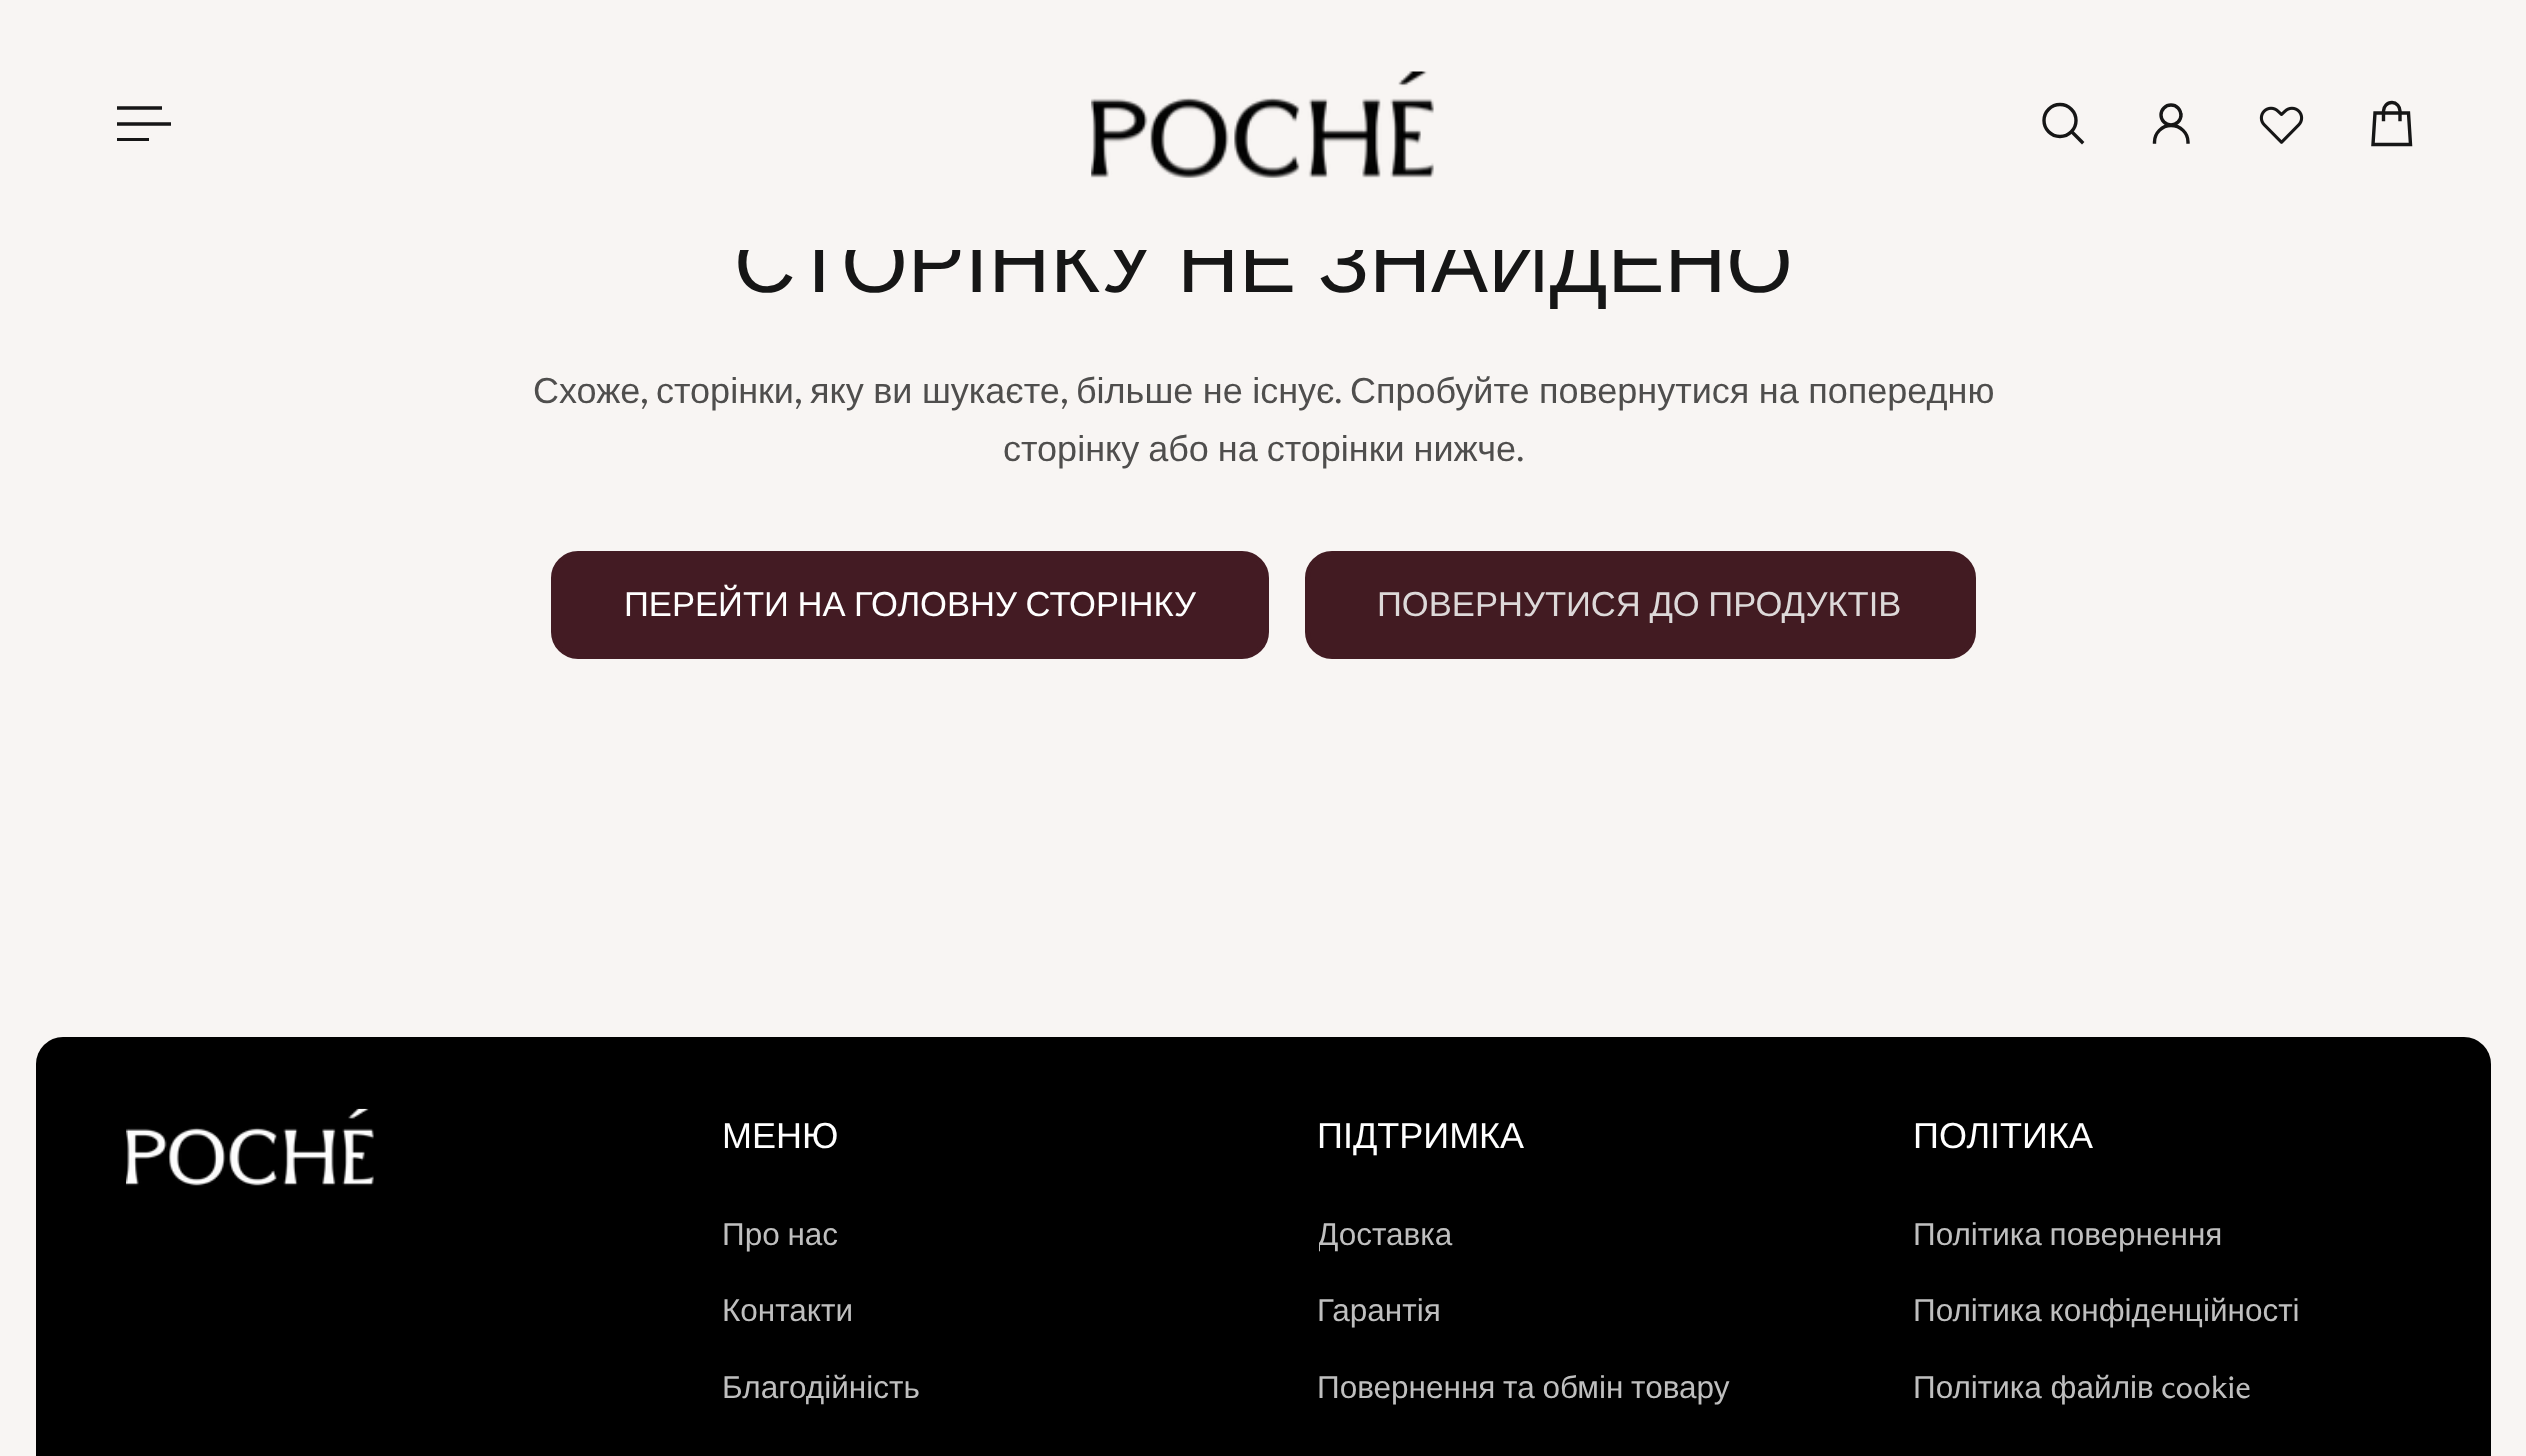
async function draw(canvas) {
  canvas.width = 2526
  canvas.height = 1456
  const ctx = canvas.getContext('2d')
  ctx.miterLimit = 4
  ctx.fontKerning = 'normal'
  async function loadImage(src) {
    const img = new Image()
    img.src = src
    await img.decode()
    return img
  }

  ctx.fillStyle = '#f8f5f3'
  ctx.fillRect(0, 0, 2526, 1456)
  ctx.wordSpacing = '-2px'
  ctx.font = '85.5px Liberation Sans'
  ctx.fillStyle = '#161616'
  ctx.fillText('СТОРІНКУ НЕ ЗНАЙДЕНО', 734, 292)
  ctx.fillStyle = '#f8f5f3'
  ctx.fillRect(740, 214, 1047, 36)
  ctx.beginPath()
  ctx.moveTo(117, 108)
  ctx.lineTo(162, 108)
  ctx.moveTo(117, 124)
  ctx.lineTo(171, 124)
  ctx.strokeStyle = '#161616'
  ctx.lineWidth = 3.4
  ctx.stroke()
  ctx.fillStyle = '#161616'
  ctx.fillRect(117, 138, 32, 3)
  ctx.drawImage(await loadImage('image0.png'), 1091, 71, 343, 107)
  ctx.beginPath()
  ctx.arc(2060, 120.5, 16, 0, 2 * Math.PI)
  ctx.stroke()
  ctx.beginPath()
  ctx.moveTo(2072, 132)
  ctx.lineTo(2082, 142)
  ctx.lineCap = 'square'
  ctx.lineJoin = 'round'
  ctx.stroke()
  ctx.beginPath()
  ctx.arc(2171, 115, 10, 0, 2 * Math.PI)
  ctx.stroke()
  ctx.beginPath()
  ctx.moveTo(2188, 142)
  ctx.bezierCurveTo(2188, 133, 2180.5, 125.5, 2171, 125.5)
  ctx.bezierCurveTo(2162, 125.5, 2154.5, 133, 2154.5, 142)
  ctx.stroke()
  ctx.drawImage(await loadImage('image1.png'), 2259, 106, 45, 38)
  ctx.beginPath()
  ctx.moveTo(2408.5, 113)
  ctx.lineTo(2375, 113)
  ctx.lineTo(2373, 144.5)
  ctx.lineTo(2410.5, 144.5)
  ctx.closePath()
  ctx.lineCap = 'butt'
  ctx.lineJoin = 'miter'
  ctx.stroke()
  ctx.beginPath()
  ctx.moveTo(2400, 119.5)
  ctx.lineTo(2400, 111)
  ctx.bezierCurveTo(2400, 106.5, 2396.5, 102.5, 2392, 102.5)
  ctx.bezierCurveTo(2387, 102.5, 2383.5, 106.5, 2383.5, 111)
  ctx.lineTo(2383.5, 119.5)
  ctx.lineCap = 'square'
  ctx.stroke()
  ctx.wordSpacing = '0px'
  ctx.font = '36px Liberation Sans'
  ctx.fillStyle = '#4f4e4d'
  ctx.fillText('Схоже', 533, 403)
  ctx.font = '36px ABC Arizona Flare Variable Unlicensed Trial'
  ctx.fillText(',', 640, 403)
  ctx.font = '36px Liberation Sans'
  ctx.fillText('сторінки', 656, 403)
  ctx.font = '36px ABC Arizona Flare Variable Unlicensed Trial'
  ctx.fillText(',', 794, 403)
  ctx.wordSpacing = '-0.5px'
  ctx.font = '36px Liberation Sans'
  ctx.fillText('яку ви шукаєте', 810, 403)
  ctx.wordSpacing = '0px'
  ctx.font = '36px ABC Arizona Flare Variable Unlicensed Trial'
  ctx.fillText(',', 1060, 403)
  ctx.wordSpacing = '-0.5px'
  ctx.font = '36px Liberation Sans'
  ctx.fillText('більше не існує', 1076, 403)
  ctx.wordSpacing = '0px'
  ctx.font = '36px ABC Arizona Flare Variable Unlicensed Trial'
  ctx.fillText('.', 1334, 403)
  ctx.wordSpacing = '-0.5px'
  ctx.font = '36px Liberation Sans'
  ctx.fillText('Спробуйте повернутися на попередню', 1350, 403)
  ctx.wordSpacing = '-1px'
  ctx.fillText('сторінку або на сторінки нижче', 1003, 461)
  ctx.wordSpacing = '0px'
  ctx.font = '36px ABC Arizona Flare Variable Unlicensed Trial'
  ctx.fillText('.', 1516, 461)
  ctx.fillStyle = '#431b23'
  ctx.beginPath()
  ctx.roundRect(553.5, 553.5, 713, 103, 24.5)
  ctx.fill()
  ctx.strokeStyle = '#431b23'
  ctx.lineWidth = 5
  ctx.stroke()
  ctx.wordSpacing = '-1px'
  ctx.font = '34.6px Liberation Sans'
  ctx.fillStyle = '#fff'
  ctx.fillText('ПЕРЕЙТИ НА ГОЛОВНУ СТОРІНКУ', 624, 616)
  ctx.fillStyle = '#421b22'
  ctx.beginPath()
  ctx.roundRect(1307.5, 553.5, 666, 103, 24.5)
  ctx.fill()
  ctx.strokeStyle = '#421b22'
  ctx.stroke()
  ctx.fillStyle = '#ddd9d9'
  ctx.fillText('ПОВЕРНУТИСЯ ДО ПРОДУКТІВ', 1377, 616)
  ctx.fillStyle = '#000'
  ctx.beginPath()
  ctx.roundRect(36, 1037, 2455, 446, 27)
  ctx.fill()
  ctx.drawImage(await loadImage('image2.png'), 126, 1108, 248, 78)
  ctx.wordSpacing = '0px'
  ctx.font = '36px Liberation Sans'
  ctx.fillStyle = '#fff'
  ctx.fillText('МЕНЮ', 722, 1148)
  ctx.wordSpacing = '-1px'
  ctx.font = '31.5px Liberation Sans'
  ctx.fillStyle = '#bfbfbf'
  ctx.fillText('Про нас', 722, 1245)
  ctx.wordSpacing = '0px'
  ctx.fillText('Контакти', 722, 1321)
  ctx.fillText('Благодійність', 722, 1398)
  ctx.font = '36px Liberation Sans'
  ctx.fillStyle = '#fff'
  ctx.fillText('ПІДТРИМКА', 1317, 1148)
  ctx.save()
  ctx.beginPath()
  ctx.rect(1319, 1208, 135, 50)
  ctx.clip()
  ctx.font = '31.5px Liberation Sans'
  ctx.fillStyle = '#bfbfbf'
  ctx.fillText('Доставка', 1317, 1245)
  ctx.restore()
  ctx.font = '31.5px Liberation Sans'
  ctx.fillStyle = '#bfbfbf'
  ctx.fillText('Гарантія', 1317, 1321)
  ctx.wordSpacing = '-1px'
  ctx.fillText('Повернення та обмін товару', 1317, 1398)
  ctx.wordSpacing = '0px'
  ctx.font = '36px Liberation Sans'
  ctx.fillStyle = '#fff'
  ctx.fillText('ПОЛІТИКА', 1913, 1148)
  ctx.wordSpacing = '-1px'
  ctx.font = '31.5px Liberation Sans'
  ctx.fillStyle = '#bfbfbf'
  ctx.fillText('Політика повернення', 1913, 1245)
  ctx.fillText('Політика конфіденційності', 1913, 1321)
  ctx.wordSpacing = '0px'
  ctx.fillText('Політика файлів', 1913, 1398)
  ctx.font = '31.5px ABC Arizona Flare Variable Unlicensed Trial'
  ctx.fillText('cookie', 2161, 1398)
}

draw(document.querySelector('canvas'))
